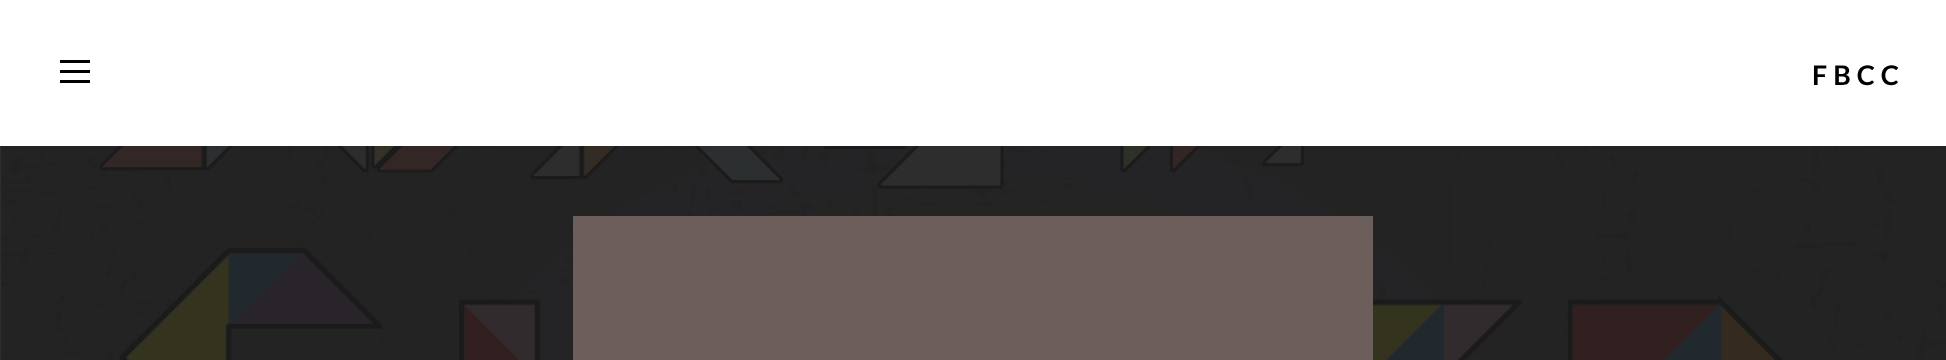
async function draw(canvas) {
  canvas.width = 1946
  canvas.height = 360
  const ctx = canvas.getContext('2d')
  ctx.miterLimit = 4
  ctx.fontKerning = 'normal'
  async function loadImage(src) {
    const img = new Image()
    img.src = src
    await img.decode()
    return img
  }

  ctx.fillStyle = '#343434'
  ctx.fillRect(0, 0, 1946, 360)
  ctx.fillStyle = '#fff'
  ctx.fillRect(0, 0, 1946, 146)
  ctx.fillStyle = '#000'
  ctx.fillRect(60, 60, 30, 3)
  ctx.fillRect(60, 70, 30, 3)
  ctx.fillRect(60, 80, 30, 3)
  ctx.letterSpacing = '6px'
  ctx.font = 'bold 27px Lato'
  ctx.fillText('FBCC', 1812, 85)
  ctx.drawImage(await loadImage('image0.png'), 0, 146, 1946, 214)
  ctx.fillStyle = '#6c5f5b'
  ctx.fillRect(573, 216, 800, 144)
}

draw(document.querySelector('canvas'))
